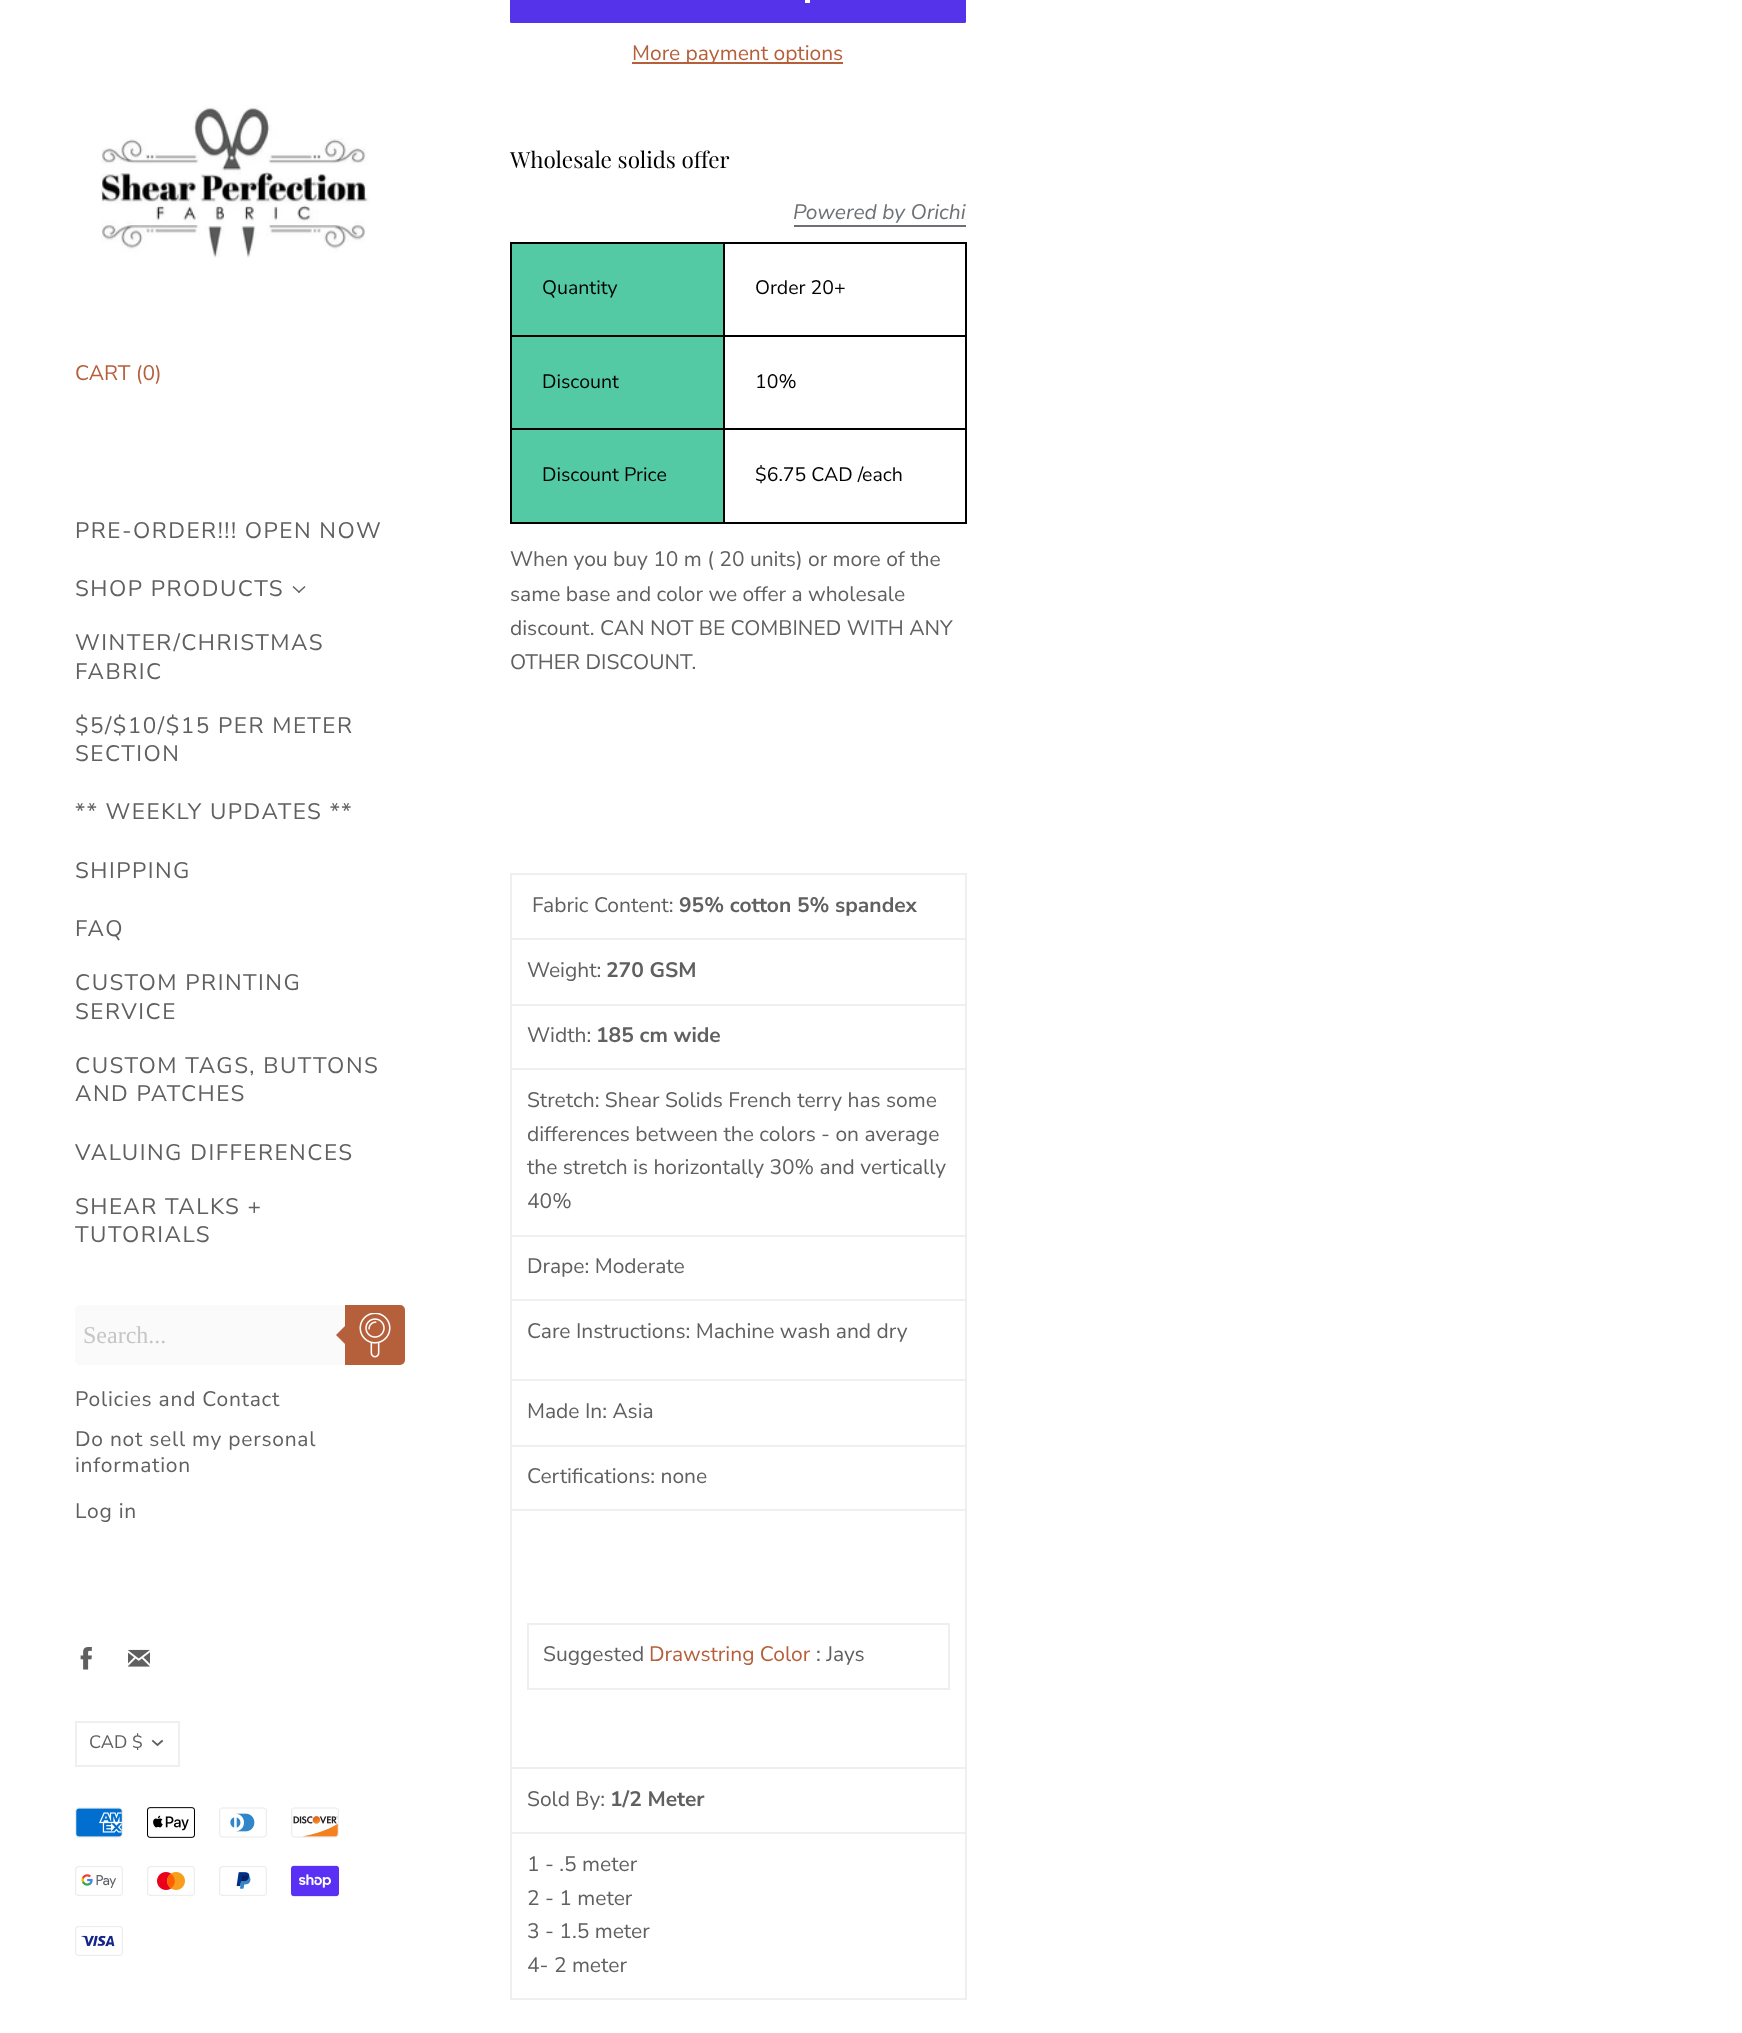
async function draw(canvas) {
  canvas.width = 1742
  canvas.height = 2033
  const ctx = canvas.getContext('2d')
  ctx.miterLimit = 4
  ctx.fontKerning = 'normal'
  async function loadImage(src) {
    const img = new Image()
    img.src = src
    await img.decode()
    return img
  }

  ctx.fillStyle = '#fff'
  ctx.fillRect(0, 0, 1742, 2033)
  ctx.drawImage(await loadImage('image0.png'), 100, 105, 270, 153)
  ctx.font = '21px Nunito Sans'
  ctx.fillStyle = '#b55f3b'
  ctx.fillText('CART (0)', 75, 380)
  ctx.letterSpacing = '1.5px'
  ctx.font = '22.5px Nunito Sans'
  ctx.fillStyle = '#606060'
  ctx.fillText('PRE-ORDER!!! OPEN NOW', 75, 538)
  ctx.fillText('SHOP PRODUCTS', 75, 596)
  ctx.beginPath()
  ctx.moveTo(305.5, 587)
  ctx.lineTo(299, 593)
  ctx.lineTo(298, 592)
  ctx.lineTo(304.5, 586)
  ctx.closePath()
  ctx.fill()
  ctx.beginPath()
  ctx.moveTo(300, 592)
  ctx.lineTo(299, 593)
  ctx.lineTo(292.5, 587)
  ctx.lineTo(293.5, 586)
  ctx.closePath()
  ctx.fill()
  ctx.fillText('WINTER/CHRISTMAS', 75, 650)
  ctx.fillText('FABRIC', 75, 679)
  ctx.fillText('$5/$10/$15 PER METER', 75, 733)
  ctx.fillText('SECTION', 75, 761)
  ctx.fillText('** WEEKLY UPDATES **', 75, 819)
  ctx.fillText('SHIPPING', 75, 878)
  ctx.fillText('FAQ', 75, 936)
  ctx.fillText('CUSTOM PRINTING', 75, 990)
  ctx.fillText('SERVICE', 75, 1019)
  ctx.fillText('CUSTOM TAGS, BUTTONS', 75, 1073)
  ctx.fillText('AND PATCHES', 75, 1101)
  ctx.fillText('VALUING DIFFERENCES', 75, 1160)
  ctx.fillText('SHEAR TALKS +', 75, 1214)
  ctx.fillText('TUTORIALS', 75, 1242)
  ctx.fillStyle = '#fafafa'
  ctx.beginPath()
  ctx.roundRect(75, 1305, 270, 60, [5, 0, 0, 5])
  ctx.fill()
  ctx.letterSpacing = '0px'
  ctx.font = '24px Liberation Serif'
  ctx.fillStyle = '#c6c6c6'
  ctx.fillText('Search...', 83, 1343)
  ctx.fillStyle = '#b55f3b'
  ctx.beginPath()
  ctx.roundRect(345, 1305, 60, 60, [0, 5, 5, 0])
  ctx.fill()
  ctx.beginPath()
  ctx.moveTo(348, 1323)
  ctx.lineTo(348, 1347)
  ctx.lineTo(336, 1335)
  ctx.closePath()
  ctx.fill()
  ctx.drawImage(await loadImage('image1.png'), 359, 1313, 32, 45)
  ctx.letterSpacing = '0.75px'
  ctx.font = '21px Nunito Sans'
  ctx.fillStyle = '#606060'
  ctx.fillText('Policies and Contact', 75, 1406)
  ctx.fillText('Do not sell my personal', 75, 1446)
  ctx.fillText('information', 75, 1472)
  ctx.fillText('Log in', 75, 1518)
  ctx.drawImage(await loadImage('image2.png'), 80, 1647, 12, 23)
  ctx.drawImage(await loadImage('image3.png'), 128, 1649, 22, 18)
  ctx.strokeStyle = '#efefef'
  ctx.lineWidth = 2
  ctx.strokeRect(76, 1722, 103, 44)
  ctx.letterSpacing = '0px'
  ctx.font = '18px Nunito Sans'
  ctx.fillText('CAD $', 89, 1748)
  ctx.beginPath()
  ctx.moveTo(157.5, 1745)
  ctx.lineTo(162, 1741)
  ctx.moveTo(157.5, 1745)
  ctx.lineTo(153, 1741)
  ctx.strokeStyle = '#606060'
  ctx.lineWidth = 1.9
  ctx.lineCap = 'square'
  ctx.stroke()
  ctx.drawImage(await loadImage('image4.png'), 75, 1807, 48, 31)
  ctx.drawImage(await loadImage('image5.png'), 147, 1807, 48, 31)
  ctx.drawImage(await loadImage('image6.png'), 219, 1807, 48, 31)
  ctx.drawImage(await loadImage('image7.png'), 291, 1807, 48, 31)
  ctx.drawImage(await loadImage('image8.png'), 75, 1866, 48, 30)
  ctx.drawImage(await loadImage('image9.png'), 147, 1866, 48, 30)
  ctx.drawImage(await loadImage('image10.png'), 219, 1866, 48, 30)
  ctx.drawImage(await loadImage('image11.png'), 291, 1865, 48, 32)
  ctx.drawImage(await loadImage('image12.png'), 75, 1926, 48, 30)
  ctx.fillStyle = '#5433eb'
  ctx.beginPath()
  ctx.roundRect(510, -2, 456, 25, 1.5)
  ctx.fill()
  ctx.fillStyle = '#fff'
  ctx.fillRect(805, 0, 5, 3)
  ctx.fillStyle = '#b55f3b'
  ctx.fillRect(632, 62, 211, 2)
  ctx.font = '21px Nunito Sans'
  ctx.fillText('More payment options', 632, 60)
  ctx.font = '22.5px Playfair Display'
  ctx.fillStyle = '#000'
  ctx.fillText('Wholesale solids offer', 510, 168)
  ctx.fillStyle = '#6d7175'
  ctx.fillRect(794, 225, 172, 2)
  ctx.font = 'italic 21px Nunito Sans'
  ctx.fillText('Powered by Orichi', 793, 219)
  ctx.fillStyle = '#53caa3'
  ctx.fillRect(512, 244, 211, 91)
  ctx.fillStyle = '#000'
  ctx.fillRect(723, 242, 243, 2)
  ctx.fillRect(723, 335, 243, 2)
  ctx.fillRect(723, 428, 243, 2)
  ctx.fillRect(965, 428, 2, 96)
  ctx.fillRect(723, 522, 243, 2)
  ctx.fillRect(723, 428, 2, 96)
  ctx.fillRect(510, 428, 215, 2)
  ctx.fillRect(723, 335, 2, 94)
  ctx.fillRect(510, 335, 215, 2)
  ctx.fillRect(723, 242, 2, 94)
  ctx.fillRect(510, 242, 215, 2)
  ctx.fillRect(510, 522, 215, 2)
  ctx.fillRect(510, 428, 2, 96)
  ctx.fillRect(510, 335, 2, 94)
  ctx.fillRect(510, 242, 2, 94)
  ctx.font = '19.5px Nunito Sans'
  ctx.fillText('Quantity', 542, 294)
  ctx.fillRect(965, 335, 2, 94)
  ctx.fillRect(965, 242, 2, 94)
  ctx.fillText('Order 20+', 755, 294)
  ctx.fillStyle = '#53caa3'
  ctx.fillRect(512, 337, 211, 91)
  ctx.fillStyle = '#000'
  ctx.fillText('Discount', 542, 388)
  ctx.fillText('10%', 755, 388)
  ctx.fillStyle = '#53caa3'
  ctx.fillRect(512, 430, 211, 92)
  ctx.fillStyle = '#000'
  ctx.fillText('Discount Price', 542, 481)
  ctx.fillText('$6.75 CAD /each', 755, 481)
  ctx.font = '21px Nunito Sans'
  ctx.fillStyle = '#606060'
  ctx.fillText('When you buy 10 m ( 20 units) or more of the', 510, 566)
  ctx.fillText('same base and color we offer a wholesale', 510, 601)
  ctx.fillText('discount. CAN NOT BE COMBINED WITH ANY', 510, 635)
  ctx.fillText('OTHER DISCOUNT.', 510, 669)
  ctx.fillStyle = '#efefef'
  ctx.fillRect(965, 873, 2, 1127)
  ctx.fillRect(510, 1998, 456, 2)
  ctx.fillRect(510, 873, 2, 1127)
  ctx.fillRect(510, 873, 456, 2)
  ctx.fillStyle = '#606060'
  ctx.fillText('Fabric Content:', 532, 912)
  ctx.font = 'bold 21px Nunito Sans'
  ctx.fillText('95% cotton 5% spandex', 679, 912)
  ctx.fillStyle = '#efefef'
  ctx.fillRect(510, 938, 456, 2)
  ctx.font = '21px Nunito Sans'
  ctx.fillStyle = '#606060'
  ctx.fillText('Weight:', 527, 977)
  ctx.font = 'bold 21px Nunito Sans'
  ctx.fillText('270 GSM', 606, 977)
  ctx.fillStyle = '#efefef'
  ctx.fillRect(510, 1004, 456, 2)
  ctx.font = '21px Nunito Sans'
  ctx.fillStyle = '#606060'
  ctx.fillText('Width:', 527, 1042)
  ctx.font = 'bold 21px Nunito Sans'
  ctx.fillText('185 cm wide', 596, 1042)
  ctx.fillStyle = '#efefef'
  ctx.fillRect(510, 1068, 456, 2)
  ctx.font = '21px Nunito Sans'
  ctx.fillStyle = '#606060'
  ctx.fillText('Stretch: Shear Solids French terry has some', 527, 1107)
  ctx.fillText('differences between the colors - on average', 527, 1141)
  ctx.fillText('the stretch is horizontally 30% and vertically', 527, 1174)
  ctx.fillText('40%', 527, 1208)
  ctx.fillStyle = '#efefef'
  ctx.fillRect(510, 1235, 456, 2)
  ctx.fillStyle = '#606060'
  ctx.fillText('Drape: Moderate', 527, 1273)
  ctx.fillStyle = '#efefef'
  ctx.fillRect(510, 1299, 456, 2)
  ctx.fillStyle = '#606060'
  ctx.fillText('Care Instructions: Machine wash and dry', 527, 1338)
  ctx.fillStyle = '#efefef'
  ctx.fillRect(510, 1379, 456, 2)
  ctx.fillStyle = '#606060'
  ctx.fillText('Made In: Asia', 527, 1418)
  ctx.fillStyle = '#efefef'
  ctx.fillRect(510, 1445, 456, 2)
  ctx.fillStyle = '#606060'
  ctx.fillText('Certifications: none', 527, 1483)
  ctx.fillStyle = '#efefef'
  ctx.fillRect(510, 1509, 456, 2)
  ctx.fillRect(948, 1623, 2, 66)
  ctx.fillRect(527, 1688, 423, 2)
  ctx.fillRect(527, 1623, 2, 66)
  ctx.fillRect(527, 1623, 423, 2)
  ctx.fillStyle = '#606060'
  ctx.fillText('Suggested', 543, 1661)
  ctx.fillStyle = '#b55f3b'
  ctx.fillText('Drawstring Color', 649, 1661)
  ctx.fillStyle = '#606060'
  ctx.fillText(': Jays', 816, 1661)
  ctx.fillStyle = '#efefef'
  ctx.fillRect(510, 1767, 456, 2)
  ctx.fillStyle = '#606060'
  ctx.fillText('Sold By:', 527, 1806)
  ctx.font = 'bold 21px Nunito Sans'
  ctx.fillText('1/2 Meter', 610, 1806)
  ctx.fillStyle = '#efefef'
  ctx.fillRect(510, 1832, 456, 2)
  ctx.font = '21px Nunito Sans'
  ctx.fillStyle = '#606060'
  ctx.fillText('1 - .5 meter', 527, 1871)
  ctx.fillText('2 - 1 meter', 527, 1905)
  ctx.fillText('3 - 1.5 meter', 527, 1938)
  ctx.fillText('4- 2 meter', 527, 1972)
}

draw(document.querySelector('canvas'))
